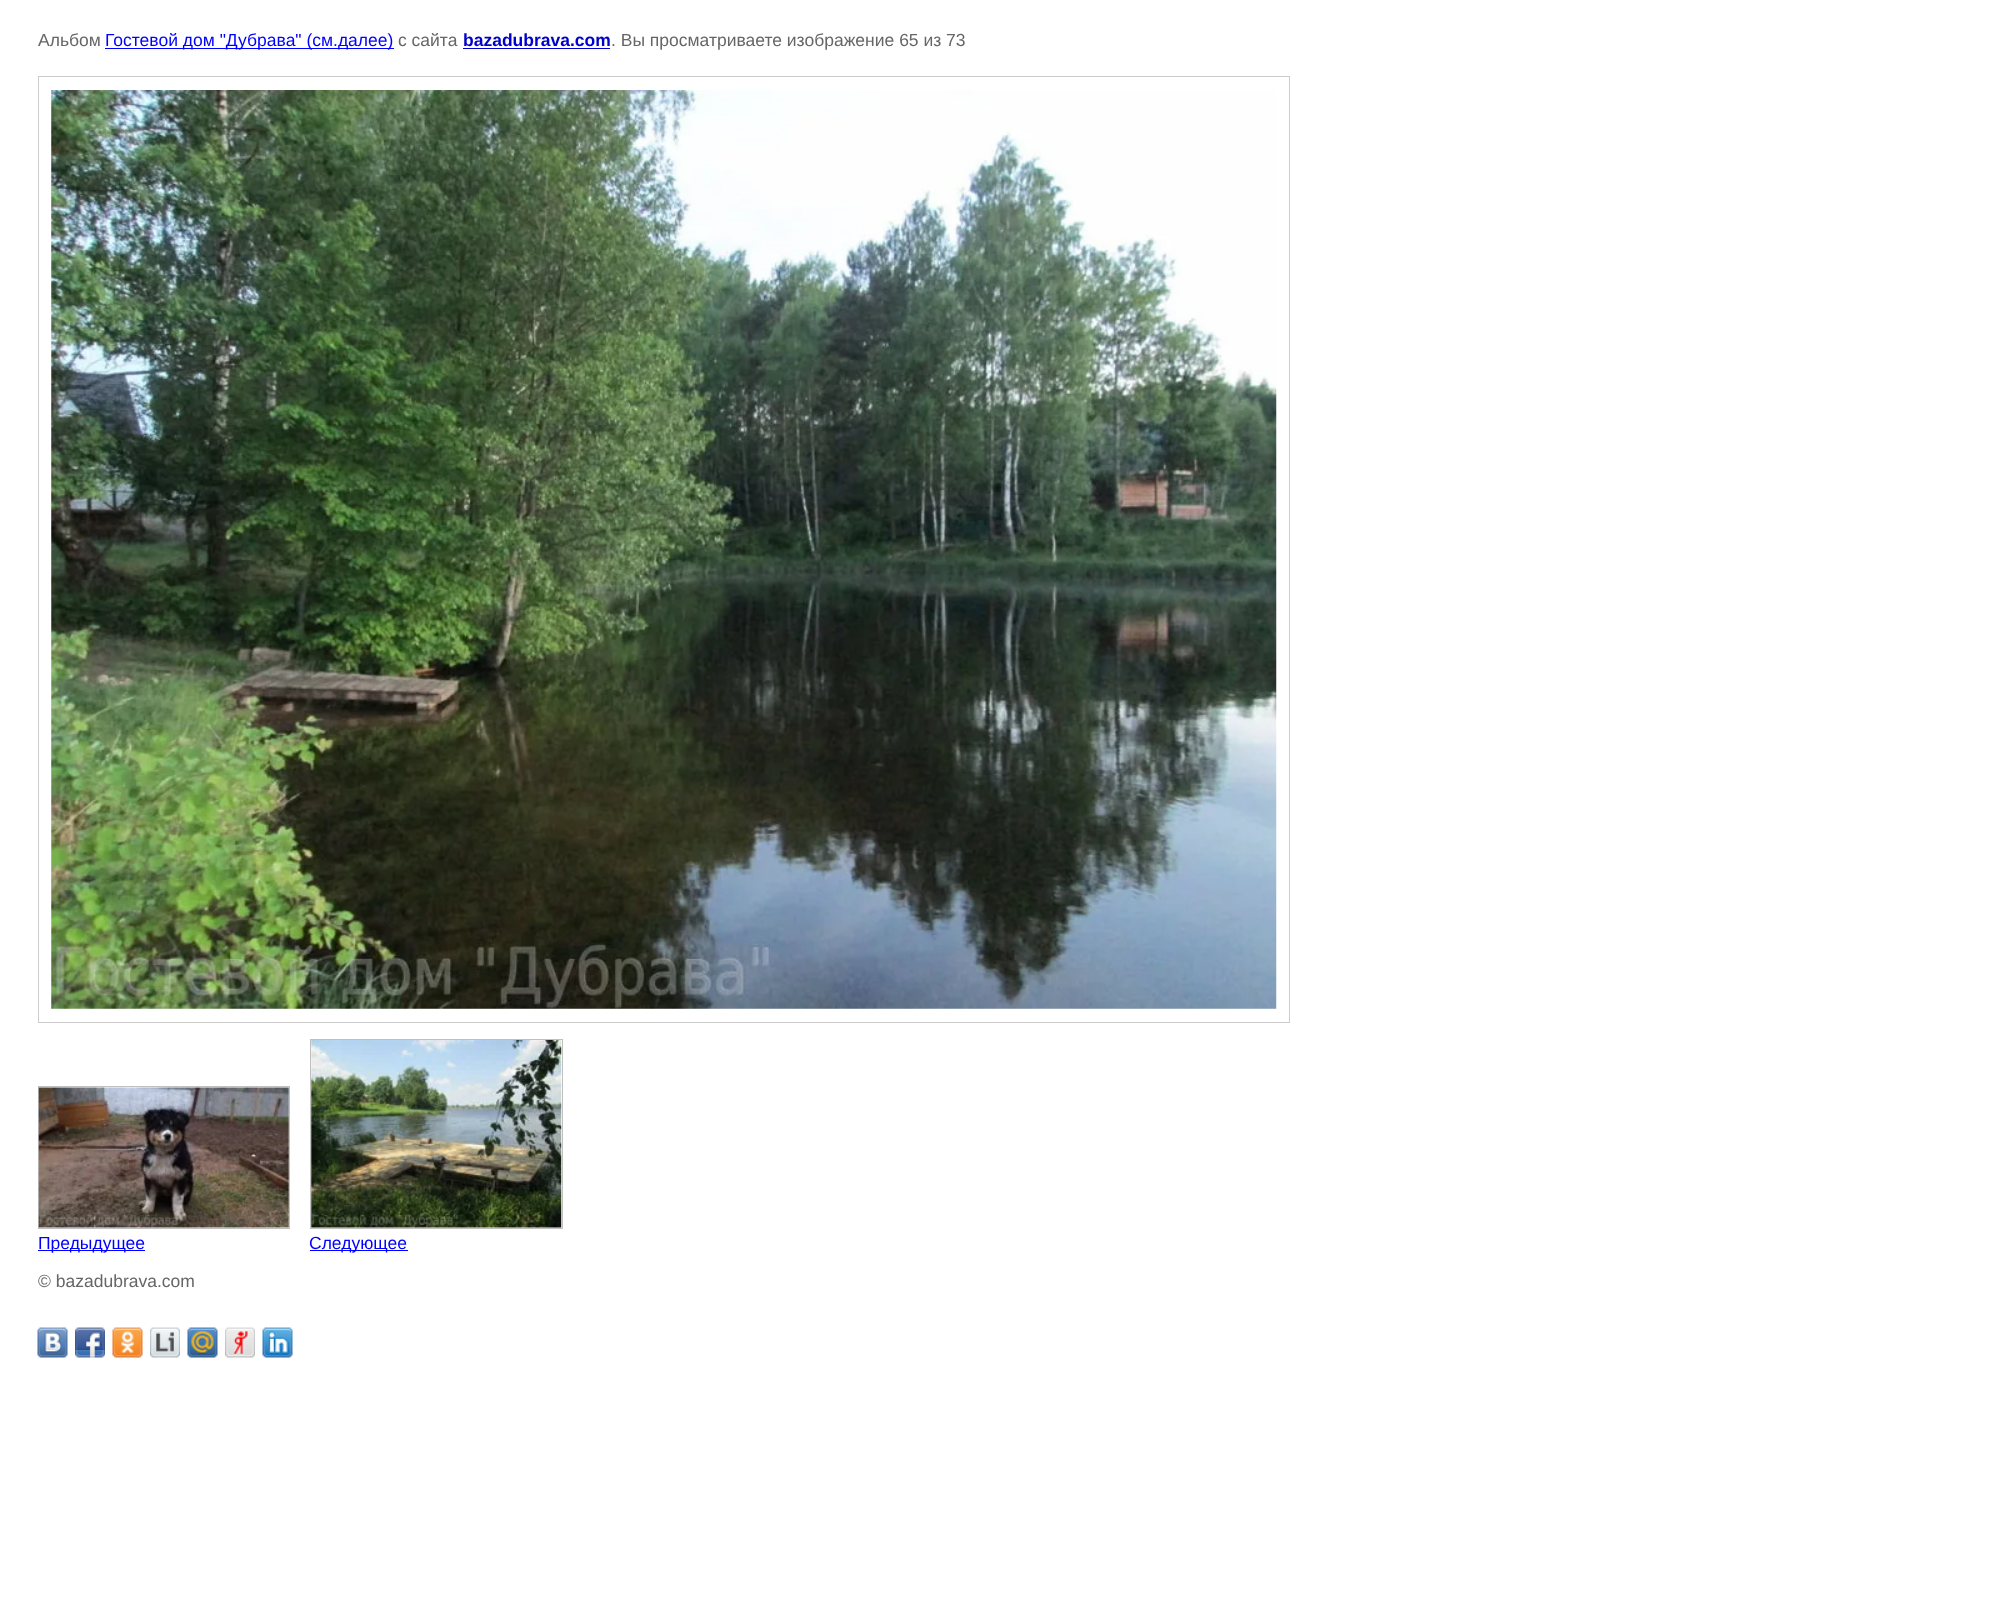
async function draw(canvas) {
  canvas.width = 2005
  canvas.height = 1624
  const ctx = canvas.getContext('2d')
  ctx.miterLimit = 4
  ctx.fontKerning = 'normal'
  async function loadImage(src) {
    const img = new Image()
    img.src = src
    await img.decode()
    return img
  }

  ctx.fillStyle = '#fff'
  ctx.fillRect(0, 0, 2005, 1624)
  ctx.font = '17.5px Liberation Sans'
  ctx.fillStyle = '#666'
  ctx.fillText('Альбом', 38, 46)
  ctx.fillStyle = '#00f'
  ctx.fillRect(105, 48, 289, 1)
  ctx.fillText('Гостевой дом "Дубрава" (см.далее)', 105, 46)
  ctx.fillStyle = '#666'
  ctx.fillText('с сайта', 398, 46)
  ctx.font = 'bold 17.5px Liberation Sans'
  ctx.fillStyle = '#00c'
  ctx.fillText('bazadubrava.com', 463, 46)
  ctx.fillRect(463, 48, 147, 1)
  ctx.font = '17.5px Liberation Sans'
  ctx.fillStyle = '#666'
  ctx.fillText('. Вы просматриваете изображение 65 из 73', 611, 46)
  ctx.strokeStyle = '#ccc'
  ctx.strokeRect(38.5, 76.5, 1251, 946)
  ctx.drawImage(await loadImage('image0.png'), 51, 90, 1226, 919)
  ctx.strokeStyle = '#c0c0c0'
  ctx.strokeRect(38.5, 1086.5, 251, 142)
  ctx.drawImage(await loadImage('image1.png'), 38, 1087, 251, 141)
  ctx.fillStyle = '#00f'
  ctx.fillRect(38, 1250, 107, 1)
  ctx.fillText('Предыдущее', 38, 1249)
  ctx.strokeRect(310.5, 1039.5, 252, 189)
  ctx.drawImage(await loadImage('image2.png'), 311, 1040, 251, 188)
  ctx.fillRect(310, 1250, 98, 1)
  ctx.fillText('Следующее', 309, 1249)
  ctx.fillStyle = '#666'
  ctx.fillText('© bazadubrava.com', 38, 1287)
  ctx.drawImage(await loadImage('image3.png'), 37, 1327, 31, 31)
  ctx.drawImage(await loadImage('image4.png'), 75, 1327, 30, 31)
  ctx.drawImage(await loadImage('image5.png'), 112, 1327, 31, 31)
  ctx.drawImage(await loadImage('image6.png'), 150, 1327, 30, 31)
  ctx.drawImage(await loadImage('image7.png'), 187, 1327, 31, 31)
  ctx.drawImage(await loadImage('image8.png'), 225, 1327, 30, 31)
  ctx.drawImage(await loadImage('image9.png'), 262, 1327, 31, 31)
}

draw(document.querySelector('canvas'))
